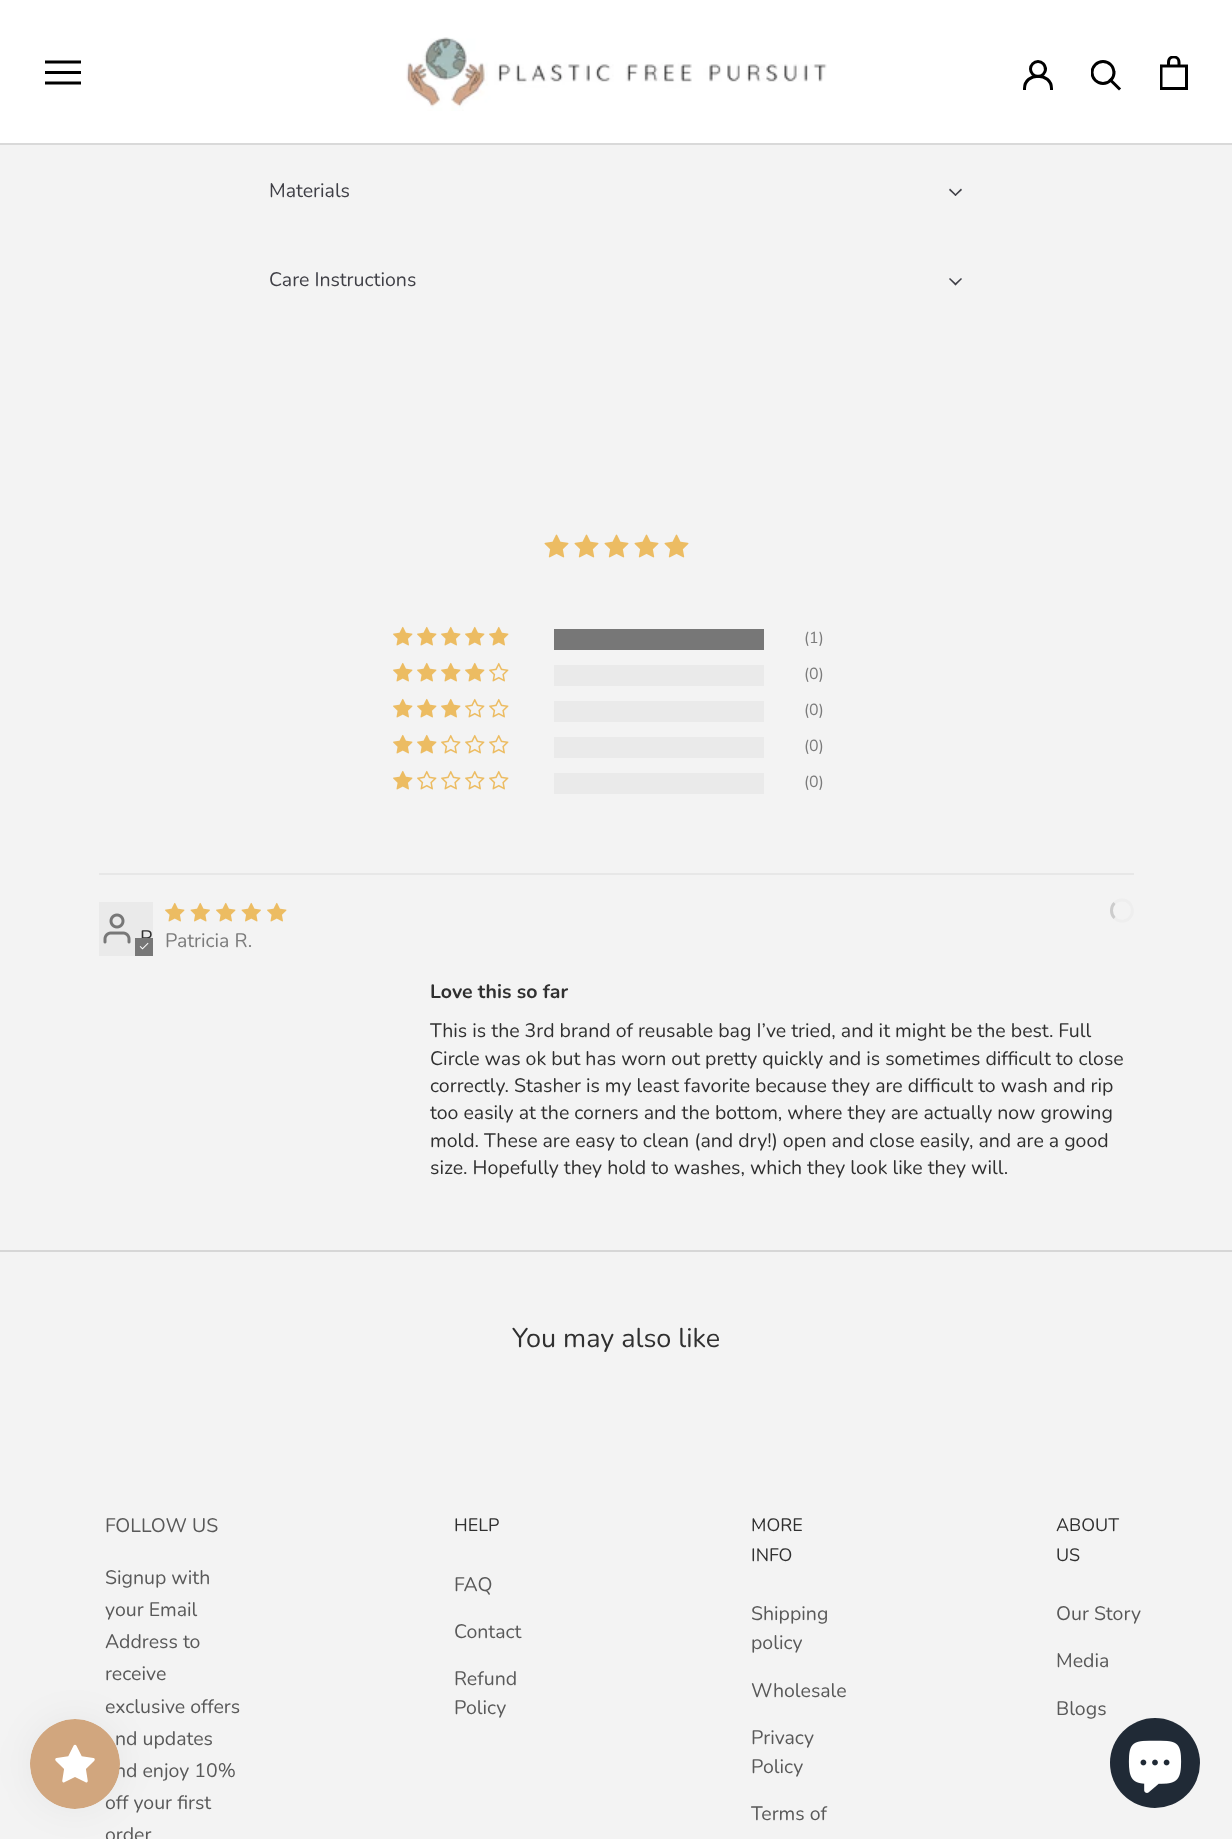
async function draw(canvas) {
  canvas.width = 1232
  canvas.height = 1839
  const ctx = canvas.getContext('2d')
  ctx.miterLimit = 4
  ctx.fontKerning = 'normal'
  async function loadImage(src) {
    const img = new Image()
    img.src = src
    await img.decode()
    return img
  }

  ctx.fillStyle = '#f3f3f3'
  ctx.fillRect(0, 0, 1232, 1839)
  ctx.fillStyle = '#0000000d'
  ctx.filter = 'blur(19px)'
  ctx.beginPath()
  ctx.roundRect(30, 1719, 90, 90, 45)
  ctx.fill()
  ctx.filter = 'none'
  ctx.font = '19.5px Nunito'
  ctx.fillStyle = '#595959'
  ctx.fillText('nd updates', 115, 1745)
  ctx.fillText('nd enjoy 10%', 115, 1777)
  ctx.fillText('off your first', 105, 1809)
  ctx.drawImage(await loadImage('image0.png'), 30, 1719, 90, 90)
  ctx.fillStyle = '#fff'
  ctx.fillRect(0, 0, 1232, 143)
  ctx.fillStyle = '#d9d9d9'
  ctx.fillRect(0, 143, 1232, 2)
  ctx.fillStyle = '#000'
  ctx.beginPath()
  ctx.moveTo(45, 84.5)
  ctx.lineTo(45, 81.5)
  ctx.lineTo(81, 81.5)
  ctx.lineTo(81, 84.5)
  ctx.closePath()
  ctx.moveTo(45, 71)
  ctx.lineTo(81, 71)
  ctx.lineTo(81, 74)
  ctx.lineTo(45, 74)
  ctx.closePath()
  ctx.moveTo(45, 60.5)
  ctx.lineTo(81, 60.5)
  ctx.lineTo(81, 63.5)
  ctx.lineTo(45, 63.5)
  ctx.closePath()
  ctx.fill()
  ctx.drawImage(await loadImage('image1.png'), 406, 37, 421, 74)
  ctx.beginPath()
  ctx.moveTo(1024.5, 88.5)
  ctx.bezierCurveTo(1024.5, 72, 1051.5, 72, 1051.5, 88.5)
  ctx.strokeStyle = '#000'
  ctx.lineWidth = 3
  ctx.lineCap = 'square'
  ctx.stroke()
  ctx.beginPath()
  ctx.arc(1038, 69, 7.5, 0, 2 * Math.PI)
  ctx.stroke()
  ctx.beginPath()
  ctx.moveTo(1119, 88.5)
  ctx.lineTo(1110.5, 80)
  ctx.stroke()
  ctx.save()
  ctx.beginPath()
  ctx.rect(1091, 60, 31, 32)
  ctx.clip()
  ctx.beginPath()
  ctx.arc(1103, 72.5, 11, 0, 2 * Math.PI)
  ctx.stroke()
  ctx.restore()
  ctx.drawImage(await loadImage('image2.png'), 1160, 56, 28, 34)
  ctx.fillStyle = '#3f3f46'
  ctx.fillText('Materials', 269, 197)
  ctx.beginPath()
  ctx.moveTo(961, 188.5)
  ctx.lineTo(962, 190)
  ctx.lineTo(955.5, 196)
  ctx.lineTo(954.5, 195)
  ctx.closePath()
  ctx.fill()
  ctx.beginPath()
  ctx.moveTo(950, 188.5)
  ctx.lineTo(956.5, 195)
  ctx.lineTo(955.5, 196)
  ctx.lineTo(949, 190)
  ctx.closePath()
  ctx.fill()
  ctx.fillText('Care Instructions', 269, 286)
  ctx.beginPath()
  ctx.moveTo(961, 278)
  ctx.lineTo(962, 279)
  ctx.lineTo(955.5, 285.5)
  ctx.lineTo(954.5, 284)
  ctx.closePath()
  ctx.fill()
  ctx.beginPath()
  ctx.moveTo(950, 278)
  ctx.lineTo(956.5, 284)
  ctx.lineTo(955.5, 285.5)
  ctx.lineTo(949, 279)
  ctx.closePath()
  ctx.fill()
  ctx.drawImage(await loadImage('image3.png'), 544, 534, 25, 24)
  ctx.drawImage(await loadImage('image3.png'), 574, 534, 25, 24)
  ctx.drawImage(await loadImage('image3.png'), 604, 534, 25, 24)
  ctx.drawImage(await loadImage('image3.png'), 634, 534, 25, 24)
  ctx.drawImage(await loadImage('image3.png'), 664, 534, 25, 24)
  ctx.drawImage(await loadImage('image4.png'), 393, 626, 20, 20)
  ctx.drawImage(await loadImage('image4.png'), 417, 626, 20, 20)
  ctx.drawImage(await loadImage('image4.png'), 441, 626, 20, 20)
  ctx.drawImage(await loadImage('image4.png'), 465, 626, 20, 20)
  ctx.drawImage(await loadImage('image4.png'), 489, 626, 20, 20)
  ctx.fillStyle = '#777'
  ctx.fillRect(554, 629, 210, 21)
  ctx.font = '16px Nunito'
  ctx.fillStyle = '#7b7b7b'
  ctx.fillText('(1)', 804, 643)
  ctx.drawImage(await loadImage('image4.png'), 393, 662, 20, 20)
  ctx.drawImage(await loadImage('image4.png'), 417, 662, 20, 20)
  ctx.drawImage(await loadImage('image4.png'), 441, 662, 20, 20)
  ctx.drawImage(await loadImage('image4.png'), 465, 662, 20, 20)
  ctx.drawImage(await loadImage('image5.png'), 489, 662, 20, 20)
  ctx.fillStyle = '#eaeaea'
  ctx.fillRect(554, 665, 210, 21)
  ctx.fillStyle = '#7b7b7b'
  ctx.fillText('(0)', 804, 679)
  ctx.drawImage(await loadImage('image4.png'), 393, 698, 20, 20)
  ctx.drawImage(await loadImage('image4.png'), 417, 698, 20, 20)
  ctx.drawImage(await loadImage('image4.png'), 441, 698, 20, 20)
  ctx.drawImage(await loadImage('image5.png'), 465, 698, 20, 20)
  ctx.drawImage(await loadImage('image5.png'), 489, 698, 20, 20)
  ctx.fillStyle = '#eaeaea'
  ctx.fillRect(554, 701, 210, 21)
  ctx.fillStyle = '#7b7b7b'
  ctx.fillText('(0)', 804, 715)
  ctx.drawImage(await loadImage('image4.png'), 393, 734, 20, 20)
  ctx.drawImage(await loadImage('image4.png'), 417, 734, 20, 20)
  ctx.drawImage(await loadImage('image5.png'), 441, 734, 20, 20)
  ctx.drawImage(await loadImage('image5.png'), 465, 734, 20, 20)
  ctx.drawImage(await loadImage('image5.png'), 489, 734, 20, 20)
  ctx.fillStyle = '#eaeaea'
  ctx.fillRect(554, 737, 210, 21)
  ctx.fillStyle = '#7b7b7b'
  ctx.fillText('(0)', 804, 751)
  ctx.drawImage(await loadImage('image4.png'), 393, 770, 20, 20)
  ctx.drawImage(await loadImage('image5.png'), 417, 770, 20, 20)
  ctx.drawImage(await loadImage('image5.png'), 441, 770, 20, 20)
  ctx.drawImage(await loadImage('image5.png'), 465, 770, 20, 20)
  ctx.drawImage(await loadImage('image5.png'), 489, 770, 20, 20)
  ctx.fillStyle = '#eaeaea'
  ctx.fillRect(554, 773, 210, 21)
  ctx.fillStyle = '#7b7b7b'
  ctx.fillText('(0)', 804, 787)
  ctx.fillStyle = '#e7e7e7'
  ctx.fillRect(99, 873, 1035, 2)
  ctx.drawImage(await loadImage('image4.png'), 165, 902, 20, 20)
  ctx.drawImage(await loadImage('image6.png'), 190, 902, 20, 20)
  ctx.drawImage(await loadImage('image4.png'), 216, 902, 20, 20)
  ctx.drawImage(await loadImage('image6.png'), 241, 902, 20, 20)
  ctx.drawImage(await loadImage('image4.png'), 267, 902, 20, 20)
  ctx.beginPath()
  ctx.moveTo(1114.5, 903)
  ctx.bezierCurveTo(1116.5, 901, 1119, 900, 1122, 900)
  ctx.bezierCurveTo(1134.5, 900, 1136.5, 918.5, 1124, 921)
  ctx.bezierCurveTo(1120.5, 921.5, 1117, 920.5, 1114.5, 918)
  ctx.strokeStyle = '#eee'
  ctx.lineCap = 'butt'
  ctx.stroke()
  ctx.beginPath()
  ctx.moveTo(1114.5, 918)
  ctx.bezierCurveTo(1110.5, 914, 1110.5, 907, 1114.5, 903)
  ctx.strokeStyle = '#ccc'
  ctx.stroke()
  ctx.fillStyle = '#eaeaea'
  ctx.fillRect(99, 902, 54, 54)
  ctx.drawImage(await loadImage('image7.png'), 103, 913, 28, 31)
  ctx.font = '19.5px Nunito'
  ctx.fillStyle = '#303030'
  ctx.fillText('P', 140, 944)
  ctx.fillStyle = '#777'
  ctx.fillRect(135, 938, 18, 18)
  ctx.drawImage(await loadImage('image8.png'), 139, 942, 10, 8)
  ctx.fillStyle = '#7b7b7b'
  ctx.fillText('Patricia R.', 165, 947)
  ctx.font = 'bold 19.5px Nunito'
  ctx.fillStyle = '#303030'
  ctx.fillText('Love this so far', 430, 998)
  ctx.font = '19.5px Nunito'
  ctx.fillText('This is the 3rd brand of reusable bag I’ve tried, and it might be the best. Full', 430, 1037)
  ctx.fillText('Circle was ok but has worn out pretty quickly and is sometimes difficult to close', 430, 1065)
  ctx.fillText('correctly. Stasher is my least favorite because they are difficult to wash and rip', 430, 1092)
  ctx.fillText('too easily at the corners and the bottom, where they are actually now growing', 430, 1119)
  ctx.fillText('mold. These are easy to clean (and dry!) open and close easily, and are a good', 430, 1147)
  ctx.fillText('size. Hopefully they hold to washes, which they look like they will.', 430, 1174)
  ctx.fillStyle = '#d6d6d6'
  ctx.fillRect(0, 1250, 1232, 2)
  ctx.font = '27px Nunito'
  ctx.fillStyle = '#303030'
  ctx.fillText('You may also like', 512, 1347)
  ctx.font = '19.5px Nunito'
  ctx.fillStyle = '#595959'
  ctx.fillText('FOLLOW US', 105, 1532)
  ctx.fillText('Signup with', 105, 1584)
  ctx.fillText('your Email', 105, 1616)
  ctx.fillText('Address to', 105, 1648)
  ctx.fillText('receive', 105, 1680)
  ctx.fillText('exclusive offers', 105, 1713)
  ctx.fillText('order', 105, 1841)
  ctx.font = '18px Nunito'
  ctx.fillStyle = '#303030'
  ctx.fillText('HELP', 454, 1531)
  ctx.font = '19.5px Nunito'
  ctx.fillStyle = '#595959'
  ctx.fillText('FAQ', 454, 1591)
  ctx.fillText('Contact', 454, 1638)
  ctx.fillText('Refund', 454, 1685)
  ctx.fillText('Policy', 454, 1714)
  ctx.font = '18px Nunito'
  ctx.fillStyle = '#303030'
  ctx.fillText('MORE', 751, 1531)
  ctx.fillText('INFO', 751, 1561)
  ctx.font = '19.5px Nunito'
  ctx.fillStyle = '#595959'
  ctx.fillText('Shipping', 751, 1620)
  ctx.fillText('policy', 751, 1649)
  ctx.fillText('Wholesale', 751, 1697)
  ctx.fillText('Privacy', 751, 1744)
  ctx.fillText('Policy', 751, 1773)
  ctx.fillText('Terms of', 751, 1820)
  ctx.font = '18px Nunito'
  ctx.fillStyle = '#303030'
  ctx.fillText('ABOUT', 1056, 1531)
  ctx.fillText('US', 1056, 1561)
  ctx.font = '19.5px Nunito'
  ctx.fillStyle = '#595959'
  ctx.fillText('Our Story', 1056, 1620)
  ctx.fillText('Media', 1056, 1667)
  ctx.fillText('Blogs', 1056, 1715)
  ctx.fillStyle = '#202a36'
  ctx.beginPath()
  ctx.arc(1155, 1763, 45, 0, 2 * Math.PI)
  ctx.fill()
  ctx.drawImage(await loadImage('image9.png'), 1128, 1740, 54, 53)
}

draw(document.querySelector('canvas'))
